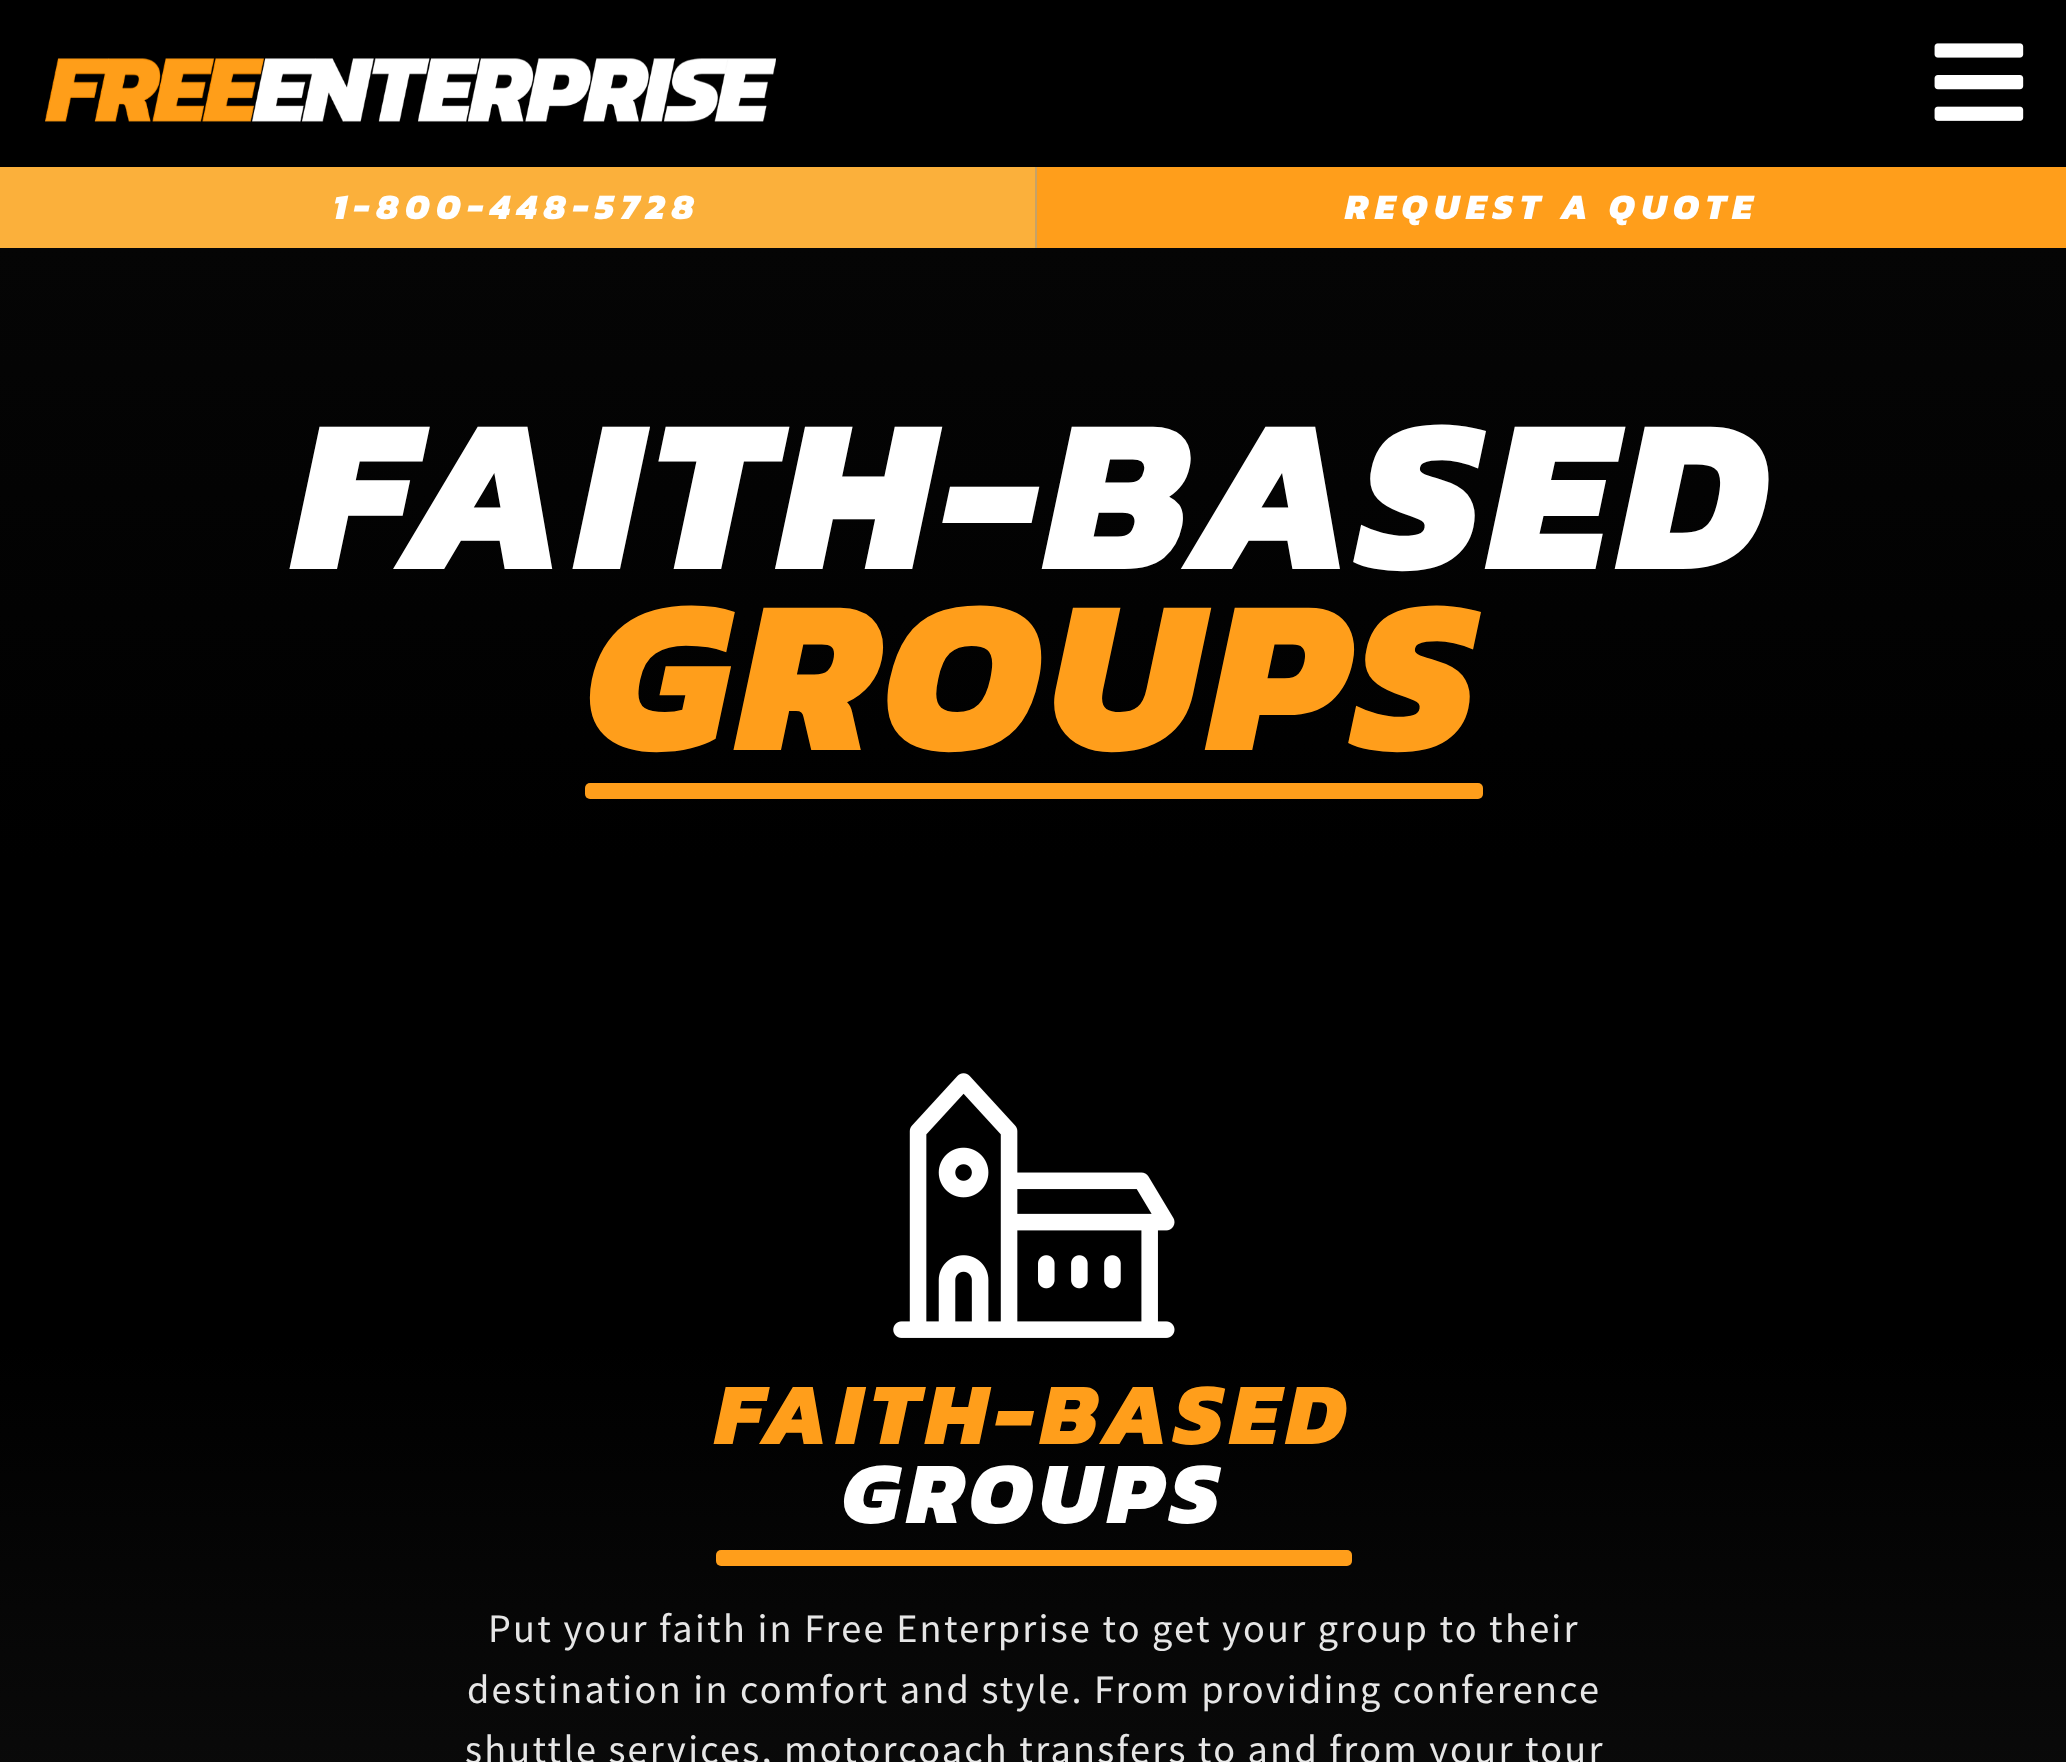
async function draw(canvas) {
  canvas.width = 2066
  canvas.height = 1762
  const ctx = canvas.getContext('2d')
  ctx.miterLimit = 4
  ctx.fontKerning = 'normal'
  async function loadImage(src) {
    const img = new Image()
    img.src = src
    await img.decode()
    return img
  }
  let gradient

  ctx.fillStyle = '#fff'
  ctx.fillRect(0, 0, 2066, 1762)
  ctx.fillStyle = '#000'
  ctx.fillRect(0, 0, 2066, 167)
  ctx.drawImage(await loadImage('image0.png'), 45, 58, 731, 64)
  ctx.drawImage(await loadImage('image1.png'), 1934, 43, 90, 78)
  ctx.fillStyle = '#fbb03b'
  ctx.fillRect(0, 167, 1035, 81)
  ctx.letterSpacing = '6.75px'
  ctx.font = 'italic 800 36px Kanit'
  ctx.fillStyle = '#fff'
  ctx.fillText('1-800-448-5728', 333, 219)
  ctx.fillStyle = '#ff9e1b'
  ctx.fillRect(1037, 167, 1029, 81)
  ctx.fillStyle = '#c6a267'
  ctx.fillRect(1035, 167, 2, 81)
  ctx.fillStyle = '#fff'
  ctx.fillText('REQUEST A QUOTE', 1345, 219)
  gradient = ctx.createLinearGradient(1034, 0, 1034, 1001)
  gradient.addColorStop(0, '#070707')
  gradient.addColorStop(0.86, '#000')
  ctx.fillStyle = gradient
  ctx.fillRect(0, 248, 2066, 753)
  ctx.font = 'italic 800 221px Kanit'
  ctx.fillStyle = '#fff'
  ctx.fillText('FAITH-BASED', 293, 569)
  ctx.fillStyle = '#ff9e1b'
  ctx.fillText('GROUPS', 585, 750)
  ctx.beginPath()
  ctx.roundRect(585, 783, 898, 16, 5)
  ctx.fill()
  gradient = ctx.createLinearGradient(1034, 1001, 1034, 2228)
  gradient.addColorStop(0.28, '#000')
  gradient.addColorStop(1, '#141414')
  ctx.fillStyle = gradient
  ctx.fillRect(0, 1001, 2066, 761)
  ctx.drawImage(await loadImage('image2.png'), 893, 1073, 282, 265)
  ctx.font = 'italic 800 88.5px Kanit'
  ctx.fillStyle = '#ff9e1b'
  ctx.fillText('FAITH-BASED', 715, 1444)
  ctx.fillStyle = '#fff'
  ctx.fillText('GROUPS', 842, 1523)
  ctx.fillStyle = '#ff9e1b'
  ctx.beginPath()
  ctx.roundRect(716, 1550, 636, 16, 5)
  ctx.fill()
  ctx.letterSpacing = '2.25px'
  ctx.font = '40.3px Source Sans Pro'
  ctx.fillStyle = '#e6e6e6'
  ctx.fillText('Put your faith in Free Enterprise to get your group to their', 488, 1642)
  ctx.fillText('destination in comfort and style. From providing conference', 467, 1703)
  ctx.fillText('shuttle services, motorcoach transfers to and from your tour', 465, 1763)
}

draw(document.querySelector('canvas'))
